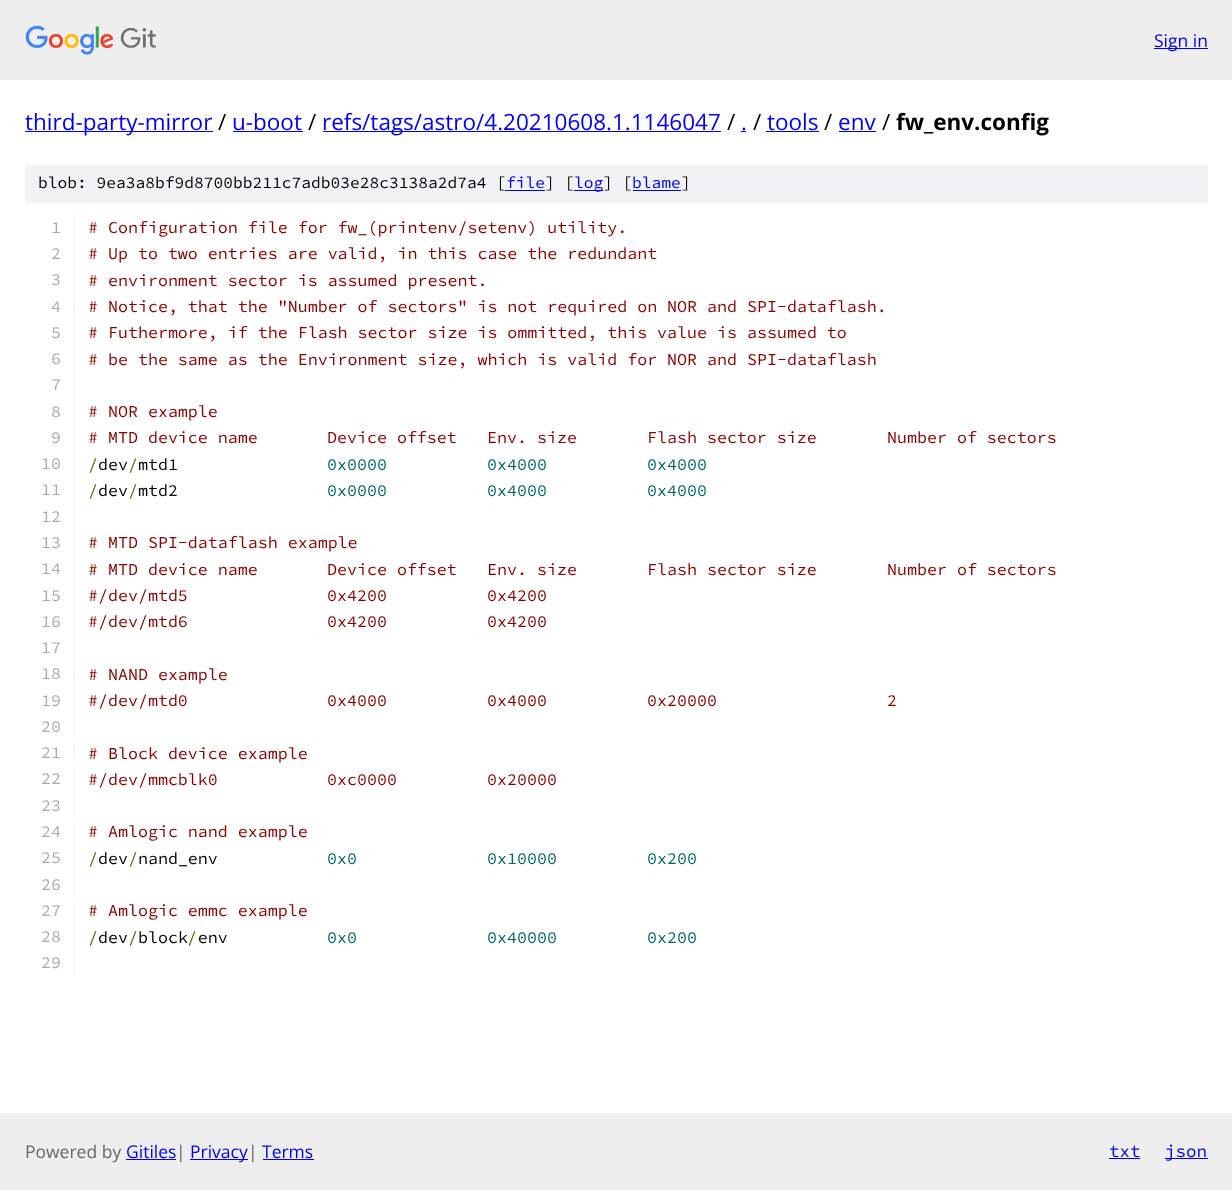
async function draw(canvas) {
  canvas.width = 1232
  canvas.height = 1190
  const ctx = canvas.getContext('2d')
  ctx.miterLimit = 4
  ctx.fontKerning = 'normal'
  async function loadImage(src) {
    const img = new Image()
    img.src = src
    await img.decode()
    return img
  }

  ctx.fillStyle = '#fff'
  ctx.fillRect(0, 0, 1232, 1190)
  ctx.fillStyle = '#eee'
  ctx.fillRect(0, 0, 1232, 80)
  ctx.drawImage(await loadImage('image0.png'), 25, 25, 131, 30)
  ctx.fillStyle = '#00e'
  ctx.fillRect(1154, 48, 54, 1)
  ctx.font = '17.5px Open Sans'
  ctx.fillText('Sign in', 1154, 47)
  ctx.fillRect(25, 131, 188, 1)
  ctx.font = '22.5px Open Sans'
  ctx.fillText('third-party-mirror', 25, 130)
  ctx.fillStyle = '#000'
  ctx.fillText('/', 218, 130)
  ctx.fillStyle = '#00e'
  ctx.fillText('u-boot', 232, 130)
  ctx.fillRect(233, 131, 70, 1)
  ctx.fillStyle = '#000'
  ctx.fillText('/', 308, 130)
  ctx.fillStyle = '#00e'
  ctx.fillRect(323, 131, 398, 1)
  ctx.fillText('refs/tags/astro/4.20210608.1.1146047', 322, 130)
  ctx.fillStyle = '#000'
  ctx.fillText('/', 727, 130)
  ctx.fillStyle = '#00e'
  ctx.fillText('.', 741, 130)
  ctx.fillRect(741, 131, 5, 1)
  ctx.fillStyle = '#000'
  ctx.fillText('/', 753, 130)
  ctx.fillStyle = '#00e'
  ctx.fillText('tools', 767, 130)
  ctx.fillRect(766, 131, 53, 1)
  ctx.fillStyle = '#000'
  ctx.fillText('/', 824, 130)
  ctx.fillStyle = '#00e'
  ctx.fillText('env', 838, 130)
  ctx.fillRect(839, 131, 37, 1)
  ctx.fillStyle = '#000'
  ctx.fillText('/', 882, 130)
  ctx.font = 'bold 22.5px Open Sans'
  ctx.fillText('fw_env.config', 896, 130)
  ctx.fillStyle = '#f1f2f3'
  ctx.fillRect(25, 165, 1183, 38)
  ctx.font = '200 16.25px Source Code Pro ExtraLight'
  ctx.fillStyle = '#000'
  ctx.fillText('blob: 9ea3a8bf9d8700bb211c7adb03e28c3138a2d7a4 [', 38, 188)
  ctx.fillStyle = '#00e'
  ctx.fillText('file', 506, 188)
  ctx.fillRect(505, 190, 40, 1)
  ctx.fillStyle = '#000'
  ctx.fillText('] [', 545, 188)
  ctx.fillStyle = '#00e'
  ctx.fillRect(574, 190, 29, 1)
  ctx.fillText('log', 574, 188)
  ctx.fillStyle = '#000'
  ctx.fillText('] [', 603, 188)
  ctx.fillStyle = '#00e'
  ctx.fillText('blame', 632, 188)
  ctx.fillRect(633, 190, 48, 1)
  ctx.fillStyle = '#000'
  ctx.fillText(']', 681, 188)
  ctx.fillStyle = '#f1f2f3'
  ctx.fillRect(74, 215, 1, 446)
  ctx.font = '200 16.65px Source Code Pro ExtraLight'
  ctx.fillStyle = '#aaa'
  ctx.fillText('1', 51, 233)
  ctx.fillStyle = '#800'
  ctx.fillText('# Configuration file for fw_(printenv/setenv) utility.', 88, 233)
  ctx.fillStyle = '#aaa'
  ctx.fillText('2', 51, 259)
  ctx.fillStyle = '#800'
  ctx.fillText('# Up to two entries are valid, in this case the redundant', 88, 259)
  ctx.fillStyle = '#aaa'
  ctx.fillText('3', 51, 285)
  ctx.fillStyle = '#800'
  ctx.fillText('# environment sector is assumed present.', 88, 286)
  ctx.fillStyle = '#aaa'
  ctx.fillText('4', 51, 312)
  ctx.fillStyle = '#800'
  ctx.fillText('# Notice, that the "Number of sectors" is not required on NOR and SPI-dataflash.', 88, 312)
  ctx.fillStyle = '#aaa'
  ctx.fillText('5', 51, 338)
  ctx.fillStyle = '#800'
  ctx.fillText('# Futhermore, if the Flash sector size is ommitted, this value is assumed to', 88, 338)
  ctx.fillStyle = '#aaa'
  ctx.fillText('6', 51, 364)
  ctx.fillStyle = '#800'
  ctx.fillText('# be the same as the Environment size, which is valid for NOR and SPI-dataflash', 88, 365)
  ctx.fillStyle = '#aaa'
  ctx.fillText('7', 51, 390)
  ctx.fillText('8', 51, 417)
  ctx.fillStyle = '#800'
  ctx.fillText('# NOR example', 88, 417)
  ctx.fillStyle = '#aaa'
  ctx.fillText('9', 51, 443)
  ctx.fillStyle = '#800'
  ctx.fillText('# MTD device name', 88, 443)
  ctx.fillText('Device offset', 327, 443)
  ctx.fillText('Env. size', 487, 443)
  ctx.fillText('Flash sector size', 647, 443)
  ctx.fillText('Number of sectors', 887, 443)
  ctx.fillStyle = '#aaa'
  ctx.fillText('10', 41, 469)
  ctx.fillStyle = '#660'
  ctx.fillText('/', 88, 470)
  ctx.fillStyle = '#000'
  ctx.fillText('dev mtd1', 98, 470)
  ctx.fillStyle = '#660'
  ctx.fillText('/', 128, 470)
  ctx.fillStyle = '#066'
  ctx.fillText('0x0000', 327, 470)
  ctx.fillText('0x4000', 487, 470)
  ctx.fillText('0x4000', 647, 470)
  ctx.fillStyle = '#aaa'
  ctx.fillText('11', 41, 495)
  ctx.fillStyle = '#660'
  ctx.fillText('/', 88, 496)
  ctx.fillStyle = '#000'
  ctx.fillText('dev mtd2', 98, 496)
  ctx.fillStyle = '#660'
  ctx.fillText('/', 128, 496)
  ctx.fillStyle = '#066'
  ctx.fillText('0x0000', 327, 496)
  ctx.fillText('0x4000', 487, 496)
  ctx.fillText('0x4000', 647, 496)
  ctx.fillStyle = '#aaa'
  ctx.fillText('12', 41, 522)
  ctx.fillText('13', 41, 548)
  ctx.fillStyle = '#800'
  ctx.fillText('# MTD SPI-dataflash example', 88, 548)
  ctx.fillStyle = '#aaa'
  ctx.fillText('14', 41, 574)
  ctx.fillStyle = '#800'
  ctx.fillText('# MTD device name', 88, 575)
  ctx.fillText('Device offset', 327, 575)
  ctx.fillText('Env. size', 487, 575)
  ctx.fillText('Flash sector size', 647, 575)
  ctx.fillText('Number of sectors', 887, 575)
  ctx.fillStyle = '#aaa'
  ctx.fillText('15', 41, 601)
  ctx.fillStyle = '#800'
  ctx.fillText('#/dev/mtd5', 88, 601)
  ctx.fillText('0x4200', 327, 601)
  ctx.fillText('0x4200', 487, 601)
  ctx.fillStyle = '#aaa'
  ctx.fillText('16', 41, 627)
  ctx.fillStyle = '#800'
  ctx.fillText('#/dev/mtd6', 88, 627)
  ctx.fillText('0x4200', 327, 627)
  ctx.fillText('0x4200', 487, 627)
  ctx.fillStyle = '#aaa'
  ctx.fillText('17', 41, 653)
  ctx.fillStyle = '#f1f2f3'
  ctx.fillRect(74, 663, 1, 25)
  ctx.fillStyle = '#aaa'
  ctx.fillText('18', 41, 679)
  ctx.fillStyle = '#800'
  ctx.fillText('# NAND example', 88, 680)
  ctx.fillStyle = '#f1f2f3'
  ctx.fillRect(74, 689, 1, 25)
  ctx.fillStyle = '#aaa'
  ctx.fillText('19', 41, 706)
  ctx.fillStyle = '#800'
  ctx.fillText('#/dev/mtd0', 88, 706)
  ctx.fillText('0x4000', 327, 706)
  ctx.fillText('0x4000', 487, 706)
  ctx.fillText('0x20000', 647, 706)
  ctx.fillText('2', 887, 706)
  ctx.fillStyle = '#f1f2f3'
  ctx.fillRect(74, 715, 1, 25)
  ctx.fillStyle = '#aaa'
  ctx.fillText('20', 41, 732)
  ctx.fillStyle = '#f1f2f3'
  ctx.fillRect(74, 741, 1, 25)
  ctx.fillStyle = '#aaa'
  ctx.fillText('21', 41, 758)
  ctx.fillStyle = '#800'
  ctx.fillText('# Block device example', 88, 759)
  ctx.fillStyle = '#f1f2f3'
  ctx.fillRect(74, 768, 1, 25)
  ctx.fillStyle = '#aaa'
  ctx.fillText('22', 41, 784)
  ctx.fillStyle = '#800'
  ctx.fillText('#/dev/mmcblk0', 88, 785)
  ctx.fillText('0xc0000', 327, 785)
  ctx.fillText('0x20000', 487, 785)
  ctx.fillStyle = '#f1f2f3'
  ctx.fillRect(74, 794, 1, 25)
  ctx.fillStyle = '#aaa'
  ctx.fillText('23', 41, 811)
  ctx.fillStyle = '#f1f2f3'
  ctx.fillRect(74, 820, 1, 25)
  ctx.fillStyle = '#aaa'
  ctx.fillText('24', 41, 837)
  ctx.fillStyle = '#800'
  ctx.fillText('# Amlogic nand example', 88, 837)
  ctx.fillStyle = '#f1f2f3'
  ctx.fillRect(74, 846, 1, 25)
  ctx.fillStyle = '#aaa'
  ctx.fillText('25', 41, 863)
  ctx.fillStyle = '#660'
  ctx.fillText('/', 88, 864)
  ctx.fillStyle = '#000'
  ctx.fillText('dev nand_env', 98, 864)
  ctx.fillStyle = '#660'
  ctx.fillText('/', 128, 864)
  ctx.fillStyle = '#066'
  ctx.fillText('0x0', 327, 864)
  ctx.fillText('0x10000', 487, 864)
  ctx.fillText('0x200', 647, 864)
  ctx.fillStyle = '#f1f2f3'
  ctx.fillRect(74, 873, 1, 25)
  ctx.fillStyle = '#aaa'
  ctx.fillText('26', 41, 890)
  ctx.fillStyle = '#f1f2f3'
  ctx.fillRect(74, 899, 1, 25)
  ctx.fillStyle = '#aaa'
  ctx.fillText('27', 41, 916)
  ctx.fillStyle = '#800'
  ctx.fillText('# Amlogic emmc example', 88, 916)
  ctx.fillStyle = '#f1f2f3'
  ctx.fillRect(74, 925, 1, 25)
  ctx.fillStyle = '#aaa'
  ctx.fillText('28', 41, 942)
  ctx.fillStyle = '#660'
  ctx.fillText('/', 88, 943)
  ctx.fillStyle = '#000'
  ctx.fillText('dev block env', 98, 943)
  ctx.fillStyle = '#660'
  ctx.fillText('/', 128, 943)
  ctx.fillText('/', 187, 943)
  ctx.fillStyle = '#066'
  ctx.fillText('0x0', 327, 943)
  ctx.fillText('0x40000', 487, 943)
  ctx.fillText('0x200', 647, 943)
  ctx.fillStyle = '#f1f2f3'
  ctx.fillRect(74, 951, 1, 25)
  ctx.fillStyle = '#aaa'
  ctx.fillText('29', 41, 968)
  ctx.fillStyle = '#eee'
  ctx.fillRect(0, 1113, 1232, 77)
  ctx.font = '17.5px Open Sans'
  ctx.fillStyle = '#666'
  ctx.fillText('Powered by', 25, 1158)
  ctx.fillStyle = '#00e'
  ctx.fillText('Gitiles', 126, 1158)
  ctx.fillRect(126, 1159, 50, 1)
  ctx.fillStyle = '#666'
  ctx.fillText('|', 176, 1158)
  ctx.fillStyle = '#00e'
  ctx.fillRect(190, 1159, 58, 1)
  ctx.fillText('Privacy', 190, 1158)
  ctx.fillStyle = '#666'
  ctx.fillText('|', 248, 1158)
  ctx.fillStyle = '#00e'
  ctx.fillText('Terms', 262, 1158)
  ctx.fillRect(263, 1159, 51, 1)
  ctx.font = '200 17.5px Source Code Pro ExtraLight'
  ctx.fillText('txt', 1109, 1157)
  ctx.fillRect(1109, 1158, 31, 1)
  ctx.fillRect(1165, 1158, 43, 1)
  ctx.fillText('json', 1165, 1157)
}

draw(document.querySelector('canvas'))
